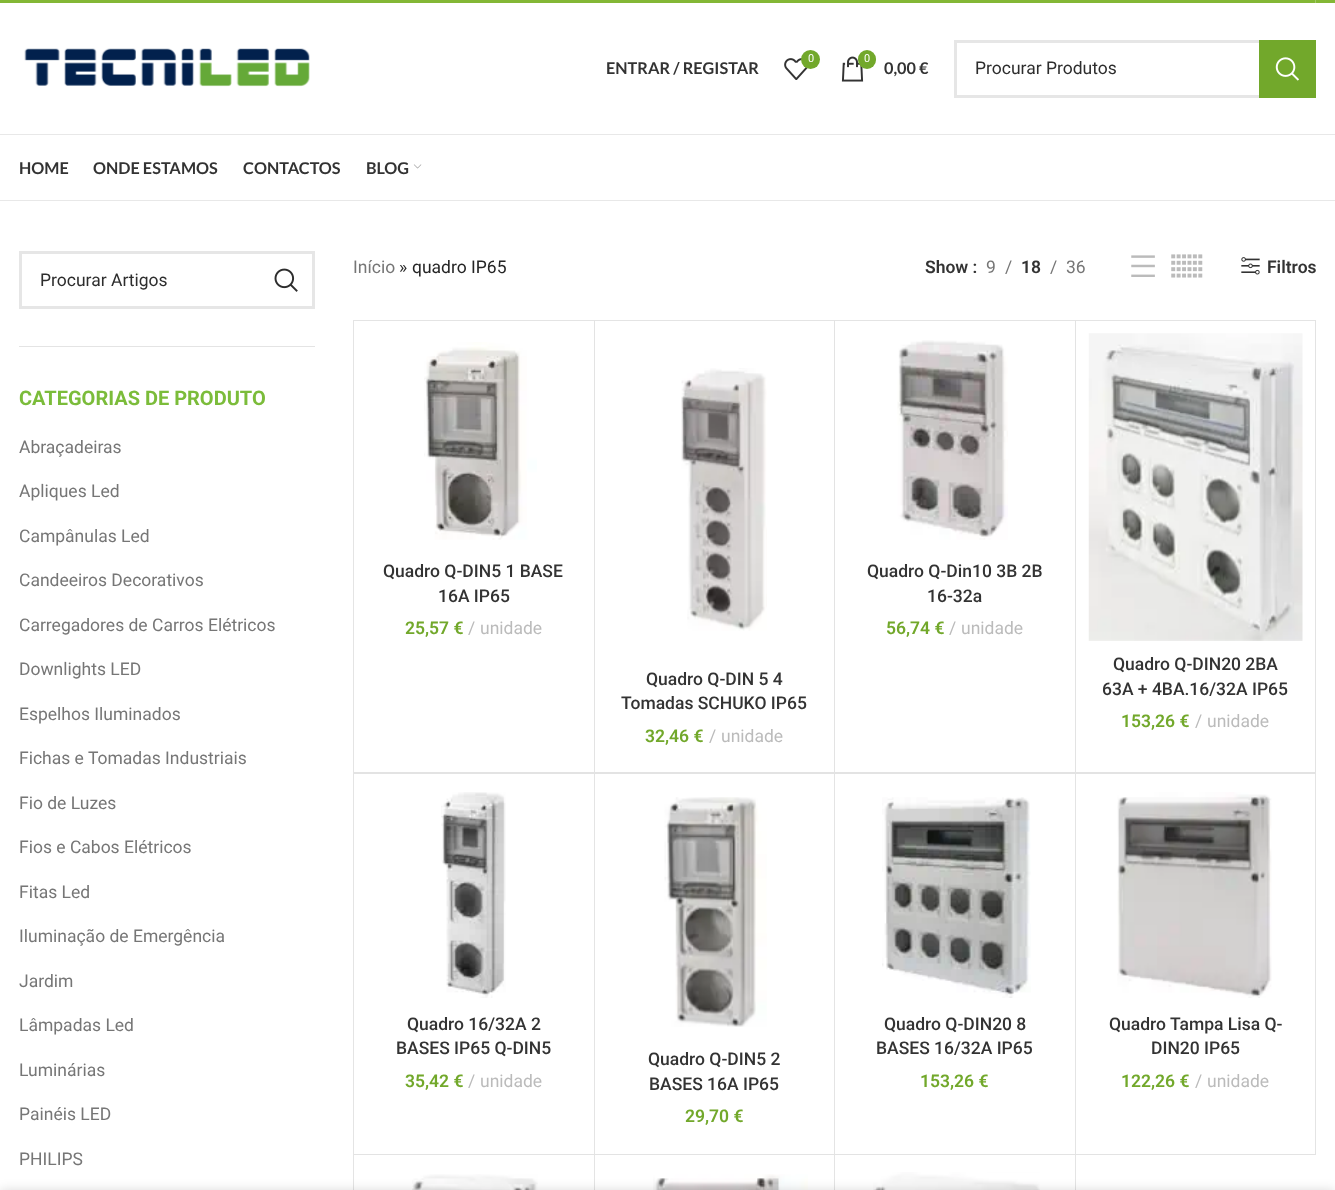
async function draw(canvas) {
  canvas.width = 1335
  canvas.height = 1190
  const ctx = canvas.getContext('2d')
  ctx.miterLimit = 4
  ctx.fontKerning = 'normal'
  async function loadImage(src) {
    const img = new Image()
    img.src = src
    await img.decode()
    return img
  }

  ctx.fillStyle = '#fff'
  ctx.fillRect(0, 0, 1335, 1190)
  ctx.fillStyle = '#83b735'
  ctx.fillRect(0, 0, 1335, 3)
  ctx.fillStyle = '#a2c968'
  ctx.fillRect(1315, 0, 1, 3)
  ctx.fillStyle = '#e8e8e8'
  ctx.fillRect(0, 134, 1335, 1)
  ctx.drawImage(await loadImage('image0.png'), 24, 48, 286, 39)
  ctx.font = 'bold 16.25px Lato'
  ctx.fillStyle = '#333'
  ctx.fillText('ENTRAR / REGISTAR', 606, 74)
  ctx.drawImage(await loadImage('image1.png'), 784, 58, 24, 22)
  ctx.fillStyle = '#72a82b'
  ctx.beginPath()
  ctx.arc(810.5, 59.5, 9.5, 0, 2 * Math.PI)
  ctx.fill()
  ctx.font = '11px Roboto'
  ctx.fillStyle = '#fff'
  ctx.fillText('0', 808, 62)
  ctx.drawImage(await loadImage('image2.png'), 841, 56, 23, 26)
  ctx.fillStyle = '#72a82b'
  ctx.beginPath()
  ctx.roundRect(858, 50, 18, 19, 9)
  ctx.fill()
  ctx.fillStyle = '#fff'
  ctx.fillText('0', 864, 62)
  ctx.font = 'bold 16.25px Lato'
  ctx.fillStyle = '#333'
  ctx.fillText('0,00 €', 884, 74)
  ctx.strokeStyle = '#e6e6e6'
  ctx.lineWidth = 3
  ctx.strokeRect(955.5, 41.5, 359, 55)
  ctx.font = '17.5px Roboto'
  ctx.fillStyle = '#2d2d2d'
  ctx.fillText('Procurar Produtos', 975, 74)
  ctx.fillStyle = '#72a82b'
  ctx.fillRect(1259, 40, 57, 58)
  ctx.drawImage(await loadImage('image3.png'), 1275, 57, 24, 24)
  ctx.fillStyle = '#e8e8e8'
  ctx.fillRect(0, 200, 1335, 1)
  ctx.font = 'bold 16.25px Lato'
  ctx.fillStyle = '#333'
  ctx.fillText('HOME', 19, 174)
  ctx.fillText('ONDE ESTAMOS', 93, 174)
  ctx.fillText('CONTACTOS', 243, 174)
  ctx.fillText('BLOG', 366, 174)
  ctx.drawImage(await loadImage('image4.png'), 413, 164, 9, 5)
  ctx.fillStyle = '#e4e4e4'
  ctx.fillRect(19, 346, 296, 1)
  ctx.strokeRect(20.5, 252.5, 293, 55)
  ctx.font = '17.5px Roboto'
  ctx.fillStyle = '#2d2d2d'
  ctx.fillText('Procurar Artigos', 40, 286)
  ctx.drawImage(await loadImage('image5.png'), 274, 268, 24, 24)
  ctx.font = 'bold 20px Roboto'
  ctx.fillStyle = '#7bbc3a'
  ctx.fillText('CATEGORIAS DE PRODUTO', 19, 405)
  ctx.font = '17.5px Roboto'
  ctx.fillStyle = '#767676'
  ctx.fillText('Abraçadeiras', 19, 453)
  ctx.fillText('Apliques Led', 19, 497)
  ctx.fillText('Campânulas Led', 19, 542)
  ctx.fillText('Candeeiros Decorativos', 19, 586)
  ctx.fillText('Carregadores de Carros Elétricos', 19, 631)
  ctx.fillText('Downlights LED', 19, 675)
  ctx.fillText('Espelhos Iluminados', 19, 720)
  ctx.fillText('Fichas e Tomadas Industriais', 19, 764)
  ctx.fillText('Fio de Luzes', 19, 809)
  ctx.fillText('Fios e Cabos Elétricos', 19, 853)
  ctx.fillText('Fitas Led', 19, 898)
  ctx.fillText('Iluminação de Emergência', 19, 942)
  ctx.fillText('Jardim', 19, 987)
  ctx.fillText('Lâmpadas Led', 19, 1031)
  ctx.fillText('Luminárias', 19, 1076)
  ctx.fillText('Painéis LED', 19, 1120)
  ctx.fillText('PHILIPS', 19, 1165)
  ctx.fillText('Início', 353, 273)
  ctx.fillStyle = '#2d2d2d'
  ctx.fillText('»', 399, 273)
  ctx.fillStyle = '#242424'
  ctx.fillText('quadro IP65', 412, 273)
  ctx.font = '600 17.5px Roboto'
  ctx.fillStyle = '#333'
  ctx.fillText('Show :', 925, 273)
  ctx.font = '17.5px Roboto'
  ctx.fillStyle = '#767676'
  ctx.fillText('9', 986, 273)
  ctx.fillText('/', 1005, 273)
  ctx.font = '600 17.5px Roboto'
  ctx.fillStyle = '#333'
  ctx.fillText('18', 1021, 273)
  ctx.font = '17.5px Roboto'
  ctx.fillStyle = '#767676'
  ctx.fillText('/', 1050, 273)
  ctx.fillText('36', 1066, 273)
  ctx.drawImage(await loadImage('image6.png'), 1131, 255, 24, 22)
  ctx.drawImage(await loadImage('image7.png'), 1171, 254, 32, 24)
  ctx.drawImage(await loadImage('image8.png'), 1241, 257, 19, 18)
  ctx.font = '600 17.5px Roboto'
  ctx.fillStyle = '#333'
  ctx.fillText('Filtros', 1267, 273)
  ctx.fillStyle = '#e4e4e4'
  ctx.fillRect(353, 320, 1, 870)
  ctx.beginPath()
  ctx.moveTo(354, 320)
  ctx.lineTo(595, 320)
  ctx.lineTo(594, 321)
  ctx.lineTo(354, 321)
  ctx.closePath()
  ctx.fill()
  ctx.fillStyle = '#0000001c'
  ctx.beginPath()
  ctx.moveTo(595, 320)
  ctx.lineTo(595, 774)
  ctx.lineTo(594, 772)
  ctx.lineTo(594, 321)
  ctx.closePath()
  ctx.fill()
  ctx.beginPath()
  ctx.moveTo(595, 774)
  ctx.lineTo(354, 774)
  ctx.lineTo(354, 772)
  ctx.lineTo(594, 772)
  ctx.closePath()
  ctx.fill()
  ctx.drawImage(await loadImage('image9.png'), 424, 342, 113, 198)
  ctx.font = '500 17.5px Roboto'
  ctx.fillStyle = '#333'
  ctx.fillText('Quadro Q-DIN5 1 BASE', 383, 577)
  ctx.fillText('16A IP65', 438, 602)
  ctx.font = '600 17.5px Roboto'
  ctx.fillStyle = '#72a82b'
  ctx.fillText('25,57 €', 405, 634)
  ctx.font = '17.5px Roboto'
  ctx.fillStyle = '#bbb'
  ctx.fillText('/', 468, 634)
  ctx.fillText('unidade', 480, 634)
  ctx.fillStyle = '#e4e4e4'
  ctx.beginPath()
  ctx.moveTo(835, 320)
  ctx.lineTo(1076, 320)
  ctx.lineTo(1075, 321)
  ctx.lineTo(835, 321)
  ctx.closePath()
  ctx.fill()
  ctx.fillStyle = '#0000001c'
  ctx.beginPath()
  ctx.moveTo(1076, 320)
  ctx.lineTo(1076, 774)
  ctx.lineTo(1075, 772)
  ctx.lineTo(1075, 321)
  ctx.closePath()
  ctx.fill()
  ctx.beginPath()
  ctx.moveTo(1076, 774)
  ctx.lineTo(835, 774)
  ctx.lineTo(835, 772)
  ctx.lineTo(1075, 772)
  ctx.closePath()
  ctx.fill()
  ctx.drawImage(await loadImage('image10.png'), 897, 340, 111, 200)
  ctx.font = '500 17.5px Roboto'
  ctx.fillStyle = '#333'
  ctx.fillText('Quadro Q-Din10 3B 2B', 867, 577)
  ctx.fillText('16-32a', 927, 602)
  ctx.font = '600 17.5px Roboto'
  ctx.fillStyle = '#72a82b'
  ctx.fillText('56,74 €', 886, 634)
  ctx.font = '17.5px Roboto'
  ctx.fillStyle = '#bbb'
  ctx.fillText('/', 949, 634)
  ctx.fillText('unidade', 961, 634)
  ctx.fillStyle = '#e4e4e4'
  ctx.beginPath()
  ctx.moveTo(595, 320)
  ctx.lineTo(835, 320)
  ctx.lineTo(834, 321)
  ctx.lineTo(595, 321)
  ctx.closePath()
  ctx.fill()
  ctx.fillStyle = '#0000001c'
  ctx.beginPath()
  ctx.moveTo(835, 320)
  ctx.lineTo(835, 774)
  ctx.lineTo(834, 772)
  ctx.lineTo(834, 321)
  ctx.closePath()
  ctx.fill()
  ctx.beginPath()
  ctx.moveTo(835, 774)
  ctx.lineTo(595, 774)
  ctx.lineTo(595, 772)
  ctx.lineTo(834, 772)
  ctx.closePath()
  ctx.fill()
  ctx.drawImage(await loadImage('image11.png'), 681, 368, 86, 263)
  ctx.font = '500 17.5px Roboto'
  ctx.fillStyle = '#333'
  ctx.fillText('Quadro Q-DIN 5 4', 646, 685)
  ctx.fillText('Tomadas SCHUKO IP65', 621, 709)
  ctx.font = '600 17.5px Roboto'
  ctx.fillStyle = '#72a82b'
  ctx.fillText('32,46 €', 645, 742)
  ctx.font = '17.5px Roboto'
  ctx.fillStyle = '#bbb'
  ctx.fillText('/', 709, 742)
  ctx.fillText('unidade', 721, 742)
  ctx.fillStyle = '#e4e4e4'
  ctx.beginPath()
  ctx.moveTo(1076, 320)
  ctx.lineTo(1316, 320)
  ctx.lineTo(1315, 321)
  ctx.lineTo(1076, 321)
  ctx.closePath()
  ctx.fill()
  ctx.fillStyle = '#0000001c'
  ctx.beginPath()
  ctx.moveTo(1316, 320)
  ctx.lineTo(1316, 774)
  ctx.lineTo(1315, 772)
  ctx.lineTo(1315, 321)
  ctx.closePath()
  ctx.fill()
  ctx.beginPath()
  ctx.moveTo(1316, 774)
  ctx.lineTo(1076, 774)
  ctx.lineTo(1076, 772)
  ctx.lineTo(1315, 772)
  ctx.closePath()
  ctx.fill()
  ctx.drawImage(await loadImage('image12.png'), 1088, 333, 215, 308)
  ctx.font = '500 17.5px Roboto'
  ctx.fillStyle = '#333'
  ctx.fillText('Quadro Q-DIN20 2BA', 1113, 670)
  ctx.fillText('63A + 4BA.16/32A IP65', 1102, 695)
  ctx.font = '600 17.5px Roboto'
  ctx.fillStyle = '#72a82b'
  ctx.fillText('153,26 €', 1121, 727)
  ctx.font = '17.5px Roboto'
  ctx.fillStyle = '#bbb'
  ctx.fillText('/', 1195, 727)
  ctx.fillText('unidade', 1207, 727)
  ctx.fillStyle = '#e4e4e4'
  ctx.beginPath()
  ctx.moveTo(595, 774)
  ctx.lineTo(595, 1155)
  ctx.lineTo(594, 1154)
  ctx.lineTo(594, 774)
  ctx.closePath()
  ctx.fill()
  ctx.fillStyle = '#0000001c'
  ctx.beginPath()
  ctx.moveTo(595, 1155)
  ctx.lineTo(354, 1155)
  ctx.lineTo(354, 1154)
  ctx.lineTo(594, 1154)
  ctx.closePath()
  ctx.fill()
  ctx.drawImage(await loadImage('image13.png'), 441, 792, 65, 206)
  ctx.font = '500 17.5px Roboto'
  ctx.fillStyle = '#333'
  ctx.fillText('Quadro 16/32A 2', 407, 1030)
  ctx.fillText('BASES IP65 Q-DIN5', 396, 1054)
  ctx.font = '600 17.5px Roboto'
  ctx.fillStyle = '#72a82b'
  ctx.fillText('35,42 €', 405, 1087)
  ctx.font = '17.5px Roboto'
  ctx.fillStyle = '#bbb'
  ctx.fillText('/', 468, 1087)
  ctx.fillText('unidade', 480, 1087)
  ctx.fillStyle = '#e4e4e4'
  ctx.beginPath()
  ctx.moveTo(835, 774)
  ctx.lineTo(835, 1155)
  ctx.lineTo(834, 1154)
  ctx.lineTo(834, 774)
  ctx.closePath()
  ctx.fill()
  ctx.fillStyle = '#0000001c'
  ctx.beginPath()
  ctx.moveTo(835, 1155)
  ctx.lineTo(595, 1155)
  ctx.lineTo(595, 1154)
  ctx.lineTo(834, 1154)
  ctx.closePath()
  ctx.fill()
  ctx.drawImage(await loadImage('image14.png'), 664, 797, 103, 230)
  ctx.font = '500 17.5px Roboto'
  ctx.fillStyle = '#333'
  ctx.fillText('Quadro Q-DIN5 2', 648, 1065)
  ctx.fillText('BASES 16A IP65', 649, 1090)
  ctx.font = '600 17.5px Roboto'
  ctx.fillStyle = '#72a82b'
  ctx.fillText('29,70 €', 685, 1122)
  ctx.fillStyle = '#e4e4e4'
  ctx.beginPath()
  ctx.moveTo(1076, 774)
  ctx.lineTo(1076, 1155)
  ctx.lineTo(1075, 1154)
  ctx.lineTo(1075, 774)
  ctx.closePath()
  ctx.fill()
  ctx.fillStyle = '#0000001c'
  ctx.beginPath()
  ctx.moveTo(1076, 1155)
  ctx.lineTo(835, 1155)
  ctx.lineTo(835, 1154)
  ctx.lineTo(1075, 1154)
  ctx.closePath()
  ctx.fill()
  ctx.drawImage(await loadImage('image15.png'), 882, 797, 149, 201)
  ctx.font = '500 17.5px Roboto'
  ctx.fillStyle = '#333'
  ctx.fillText('Quadro Q-DIN20 8', 884, 1030)
  ctx.fillText('BASES 16/32A IP65', 876, 1054)
  ctx.font = '600 17.5px Roboto'
  ctx.fillStyle = '#72a82b'
  ctx.fillText('153,26 €', 920, 1087)
  ctx.fillStyle = '#e4e4e4'
  ctx.beginPath()
  ctx.moveTo(1316, 774)
  ctx.lineTo(1316, 1155)
  ctx.lineTo(1315, 1154)
  ctx.lineTo(1315, 774)
  ctx.closePath()
  ctx.fill()
  ctx.fillStyle = '#0000001c'
  ctx.beginPath()
  ctx.moveTo(1316, 1155)
  ctx.lineTo(1076, 1155)
  ctx.lineTo(1076, 1154)
  ctx.lineTo(1315, 1154)
  ctx.closePath()
  ctx.fill()
  ctx.drawImage(await loadImage('image16.png'), 1117, 792, 155, 206)
  ctx.font = '500 17.5px Roboto'
  ctx.fillStyle = '#333'
  ctx.fillText('Quadro Tampa Lisa Q-', 1109, 1030)
  ctx.fillText('DIN20 IP65', 1151, 1054)
  ctx.font = '600 17.5px Roboto'
  ctx.fillStyle = '#72a82b'
  ctx.fillText('122,26 €', 1121, 1087)
  ctx.font = '17.5px Roboto'
  ctx.fillStyle = '#bbb'
  ctx.fillText('/', 1195, 1087)
  ctx.fillText('unidade', 1207, 1087)
  ctx.fillStyle = '#e4e4e4'
  ctx.beginPath()
  ctx.moveTo(595, 1155)
  ctx.lineTo(595, 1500)
  ctx.lineTo(594, 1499)
  ctx.lineTo(594, 1155)
  ctx.closePath()
  ctx.fill()
  ctx.drawImage(await loadImage('image17.png'), 412, 1174, 126, 16)
  ctx.beginPath()
  ctx.moveTo(835, 1155)
  ctx.lineTo(835, 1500)
  ctx.lineTo(834, 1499)
  ctx.lineTo(834, 1155)
  ctx.closePath()
  ctx.fill()
  ctx.drawImage(await loadImage('image18.png'), 653, 1174, 155, 16)
  ctx.beginPath()
  ctx.moveTo(1076, 1155)
  ctx.lineTo(1076, 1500)
  ctx.lineTo(1075, 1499)
  ctx.lineTo(1075, 1155)
  ctx.closePath()
  ctx.fill()
  ctx.drawImage(await loadImage('image19.png'), 873, 1172, 167, 18)
  ctx.fillStyle = '#00000024'
  ctx.filter = 'blur(5.5px)'
  ctx.beginPath()
  ctx.rect(0, 1190, 1335, 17)
  ctx.fill()
  ctx.filter = 'none'
}

draw(document.querySelector('canvas'))
